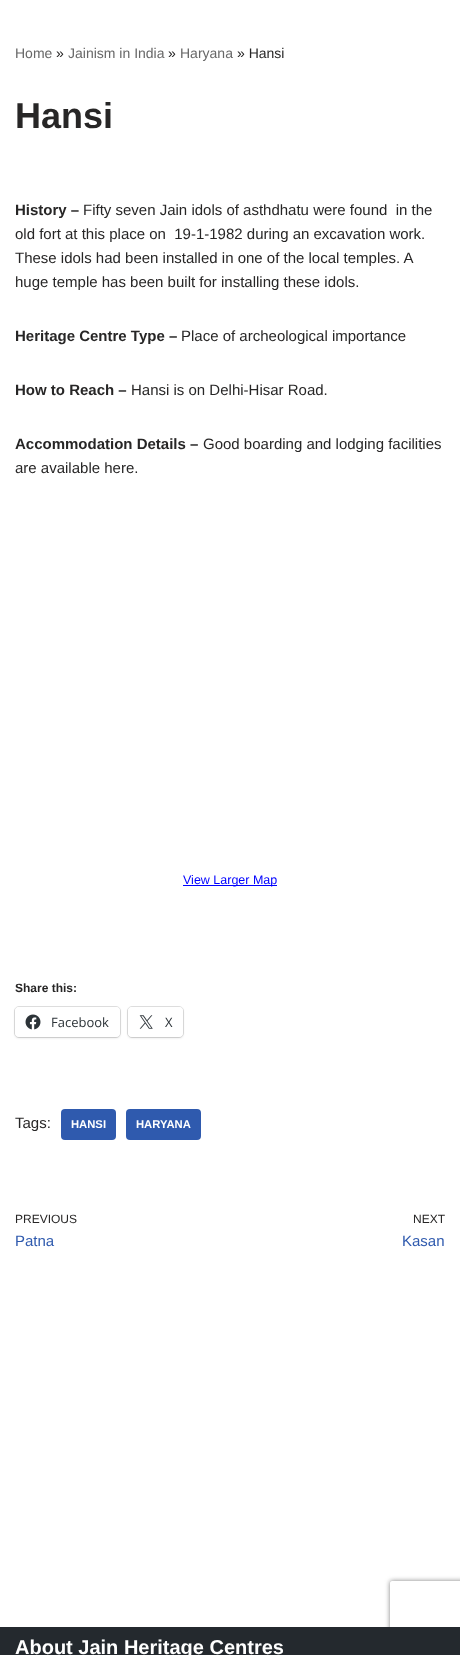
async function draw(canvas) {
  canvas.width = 460
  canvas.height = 1655
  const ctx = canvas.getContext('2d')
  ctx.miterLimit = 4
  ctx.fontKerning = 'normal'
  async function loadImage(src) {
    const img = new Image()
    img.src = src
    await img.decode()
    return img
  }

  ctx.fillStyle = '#fff'
  ctx.fillRect(0, 0, 460, 1655)
  ctx.font = '14px Liberation Sans'
  ctx.fillStyle = '#676767'
  ctx.fillText('Home', 15, 58)
  ctx.fillStyle = '#272626'
  ctx.fillText('»', 56, 58)
  ctx.fillStyle = '#676767'
  ctx.fillText('Jainism in India', 68, 58)
  ctx.fillStyle = '#272626'
  ctx.fillText('»', 168, 58)
  ctx.fillStyle = '#676767'
  ctx.fillText('Haryana', 180, 58)
  ctx.fillStyle = '#272626'
  ctx.fillText('» Hansi', 237, 58)
  ctx.font = 'bold 36px Liberation Sans'
  ctx.fillText('Hansi', 15, 128)
  ctx.font = 'bold 15px Liberation Sans'
  ctx.fillText('History –', 15, 215)
  ctx.font = '15px Liberation Sans'
  ctx.fillText('Fifty seven Jain idols of asthdhatu were found  in the', 83, 215)
  ctx.fillText('old fort at this place on  19-1-1982 during an excavation work.', 15, 239)
  ctx.fillText('These idols had been installed in one of the local temples. A', 15, 263)
  ctx.fillText('huge temple has been built for installing these idols.', 15, 287)
  ctx.font = 'bold 15px Liberation Sans'
  ctx.fillText('Heritage Centre Type –', 15, 341)
  ctx.font = '15px Liberation Sans'
  ctx.fillText('Place of archeological importance', 181, 341)
  ctx.font = 'bold 15px Liberation Sans'
  ctx.fillText('How to Reach –', 15, 395)
  ctx.font = '15px Liberation Sans'
  ctx.fillText('Hansi is on Delhi-Hisar Road.', 131, 395)
  ctx.font = 'bold 15px Liberation Sans'
  ctx.fillText('Accommodation Details –', 15, 449)
  ctx.font = '15px Liberation Sans'
  ctx.fillText('Good boarding and lodging facilities', 203, 449)
  ctx.fillText('are available here.', 15, 473)
  ctx.fillStyle = '#00f'
  ctx.fillRect(183, 885, 94, 1)
  ctx.font = '12.5px Liberation Sans'
  ctx.fillText('View Larger Map', 183, 884)
  ctx.font = 'bold 12px Liberation Sans'
  ctx.fillStyle = '#272626'
  ctx.fillText('Share this:', 15, 992)
  ctx.beginPath()
  ctx.roundRect(14.5, 1006.5, 106, 31, 4.5)
  ctx.strokeStyle = '#e0e0e0'
  ctx.stroke()
  ctx.fillStyle = '#0000001f'
  ctx.filter = 'blur(1px)'
  ctx.beginPath()
  ctx.roundRect(15, 1008, 105, 30, 4)
  ctx.fill()
  ctx.filter = 'none'
  ctx.fillStyle = '#fff'
  ctx.beginPath()
  ctx.roundRect(15, 1007, 105, 30, 4)
  ctx.fill()
  ctx.drawImage(await loadImage('image0.png'), 25, 1014, 16, 16)
  ctx.font = '13px Open Sans'
  ctx.fillStyle = '#2c3338'
  ctx.fillText('Facebook', 51, 1027)
  ctx.beginPath()
  ctx.roundRect(127.5, 1006.5, 56, 31, 4.5)
  ctx.stroke()
  ctx.fillStyle = '#0000001f'
  ctx.filter = 'blur(1px)'
  ctx.beginPath()
  ctx.roundRect(128, 1008, 55, 30, 4)
  ctx.fill()
  ctx.filter = 'none'
  ctx.fillStyle = '#fff'
  ctx.beginPath()
  ctx.roundRect(128, 1007, 55, 30, 4)
  ctx.fill()
  ctx.drawImage(await loadImage('image1.png'), 139, 1015, 14, 14)
  ctx.fillStyle = '#2c3338'
  ctx.fillText('X', 165, 1027)
  ctx.font = '15px Liberation Sans'
  ctx.fillStyle = '#272626'
  ctx.fillText('Tags:', 15, 1128)
  ctx.fillStyle = '#2f5aae'
  ctx.beginPath()
  ctx.roundRect(61, 1109, 55, 31, 4)
  ctx.fill()
  ctx.font = 'bold 11.25px Liberation Sans'
  ctx.fillStyle = '#fff'
  ctx.fillText('HANSI', 71, 1128)
  ctx.fillStyle = '#2f5aae'
  ctx.beginPath()
  ctx.roundRect(126, 1109, 75, 31, 4)
  ctx.fill()
  ctx.fillStyle = '#fff'
  ctx.fillText('HARYANA', 136, 1128)
  ctx.font = '12px Liberation Sans'
  ctx.fillStyle = '#272626'
  ctx.fillText('PREVIOUS', 15, 1223)
  ctx.font = '15px Liberation Sans'
  ctx.fillStyle = '#2f5aae'
  ctx.fillText('Patna', 15, 1246)
  ctx.font = '12px Liberation Sans'
  ctx.fillStyle = '#272626'
  ctx.fillText('NEXT', 413, 1223)
  ctx.font = '15px Liberation Sans'
  ctx.fillStyle = '#2f5aae'
  ctx.fillText('Kasan', 402, 1246)
  ctx.save()
  ctx.beginPath()
  ctx.moveTo(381, 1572)
  ctx.lineTo(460, 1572)
  ctx.lineTo(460, 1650)
  ctx.lineTo(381, 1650)
  ctx.closePath()
  ctx.moveTo(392, 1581)
  ctx.lineTo(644, 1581)
  ctx.bezierCurveTo(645, 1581, 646, 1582, 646, 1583)
  ctx.lineTo(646, 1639)
  ctx.bezierCurveTo(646, 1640, 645, 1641, 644, 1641)
  ctx.lineTo(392, 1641)
  ctx.bezierCurveTo(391, 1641, 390, 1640, 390, 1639)
  ctx.lineTo(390, 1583)
  ctx.bezierCurveTo(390, 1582, 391, 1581, 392, 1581)
  ctx.closePath()
  ctx.clip('evenodd')
  ctx.fillStyle = '#808080'
  ctx.filter = 'blur(2.5px)'
  ctx.beginPath()
  ctx.roundRect(390, 1581, 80, 60, 2)
  ctx.fill()
  ctx.filter = 'none'
  ctx.restore()
  ctx.fillStyle = '#24292e'
  ctx.fillRect(0, 1627, 460, 28)
  ctx.font = 'bold 20px Liberation Sans'
  ctx.fillStyle = '#fff'
  ctx.fillText('About Jain Heritage Centres', 15, 1654)
}

draw(document.querySelector('canvas'))
